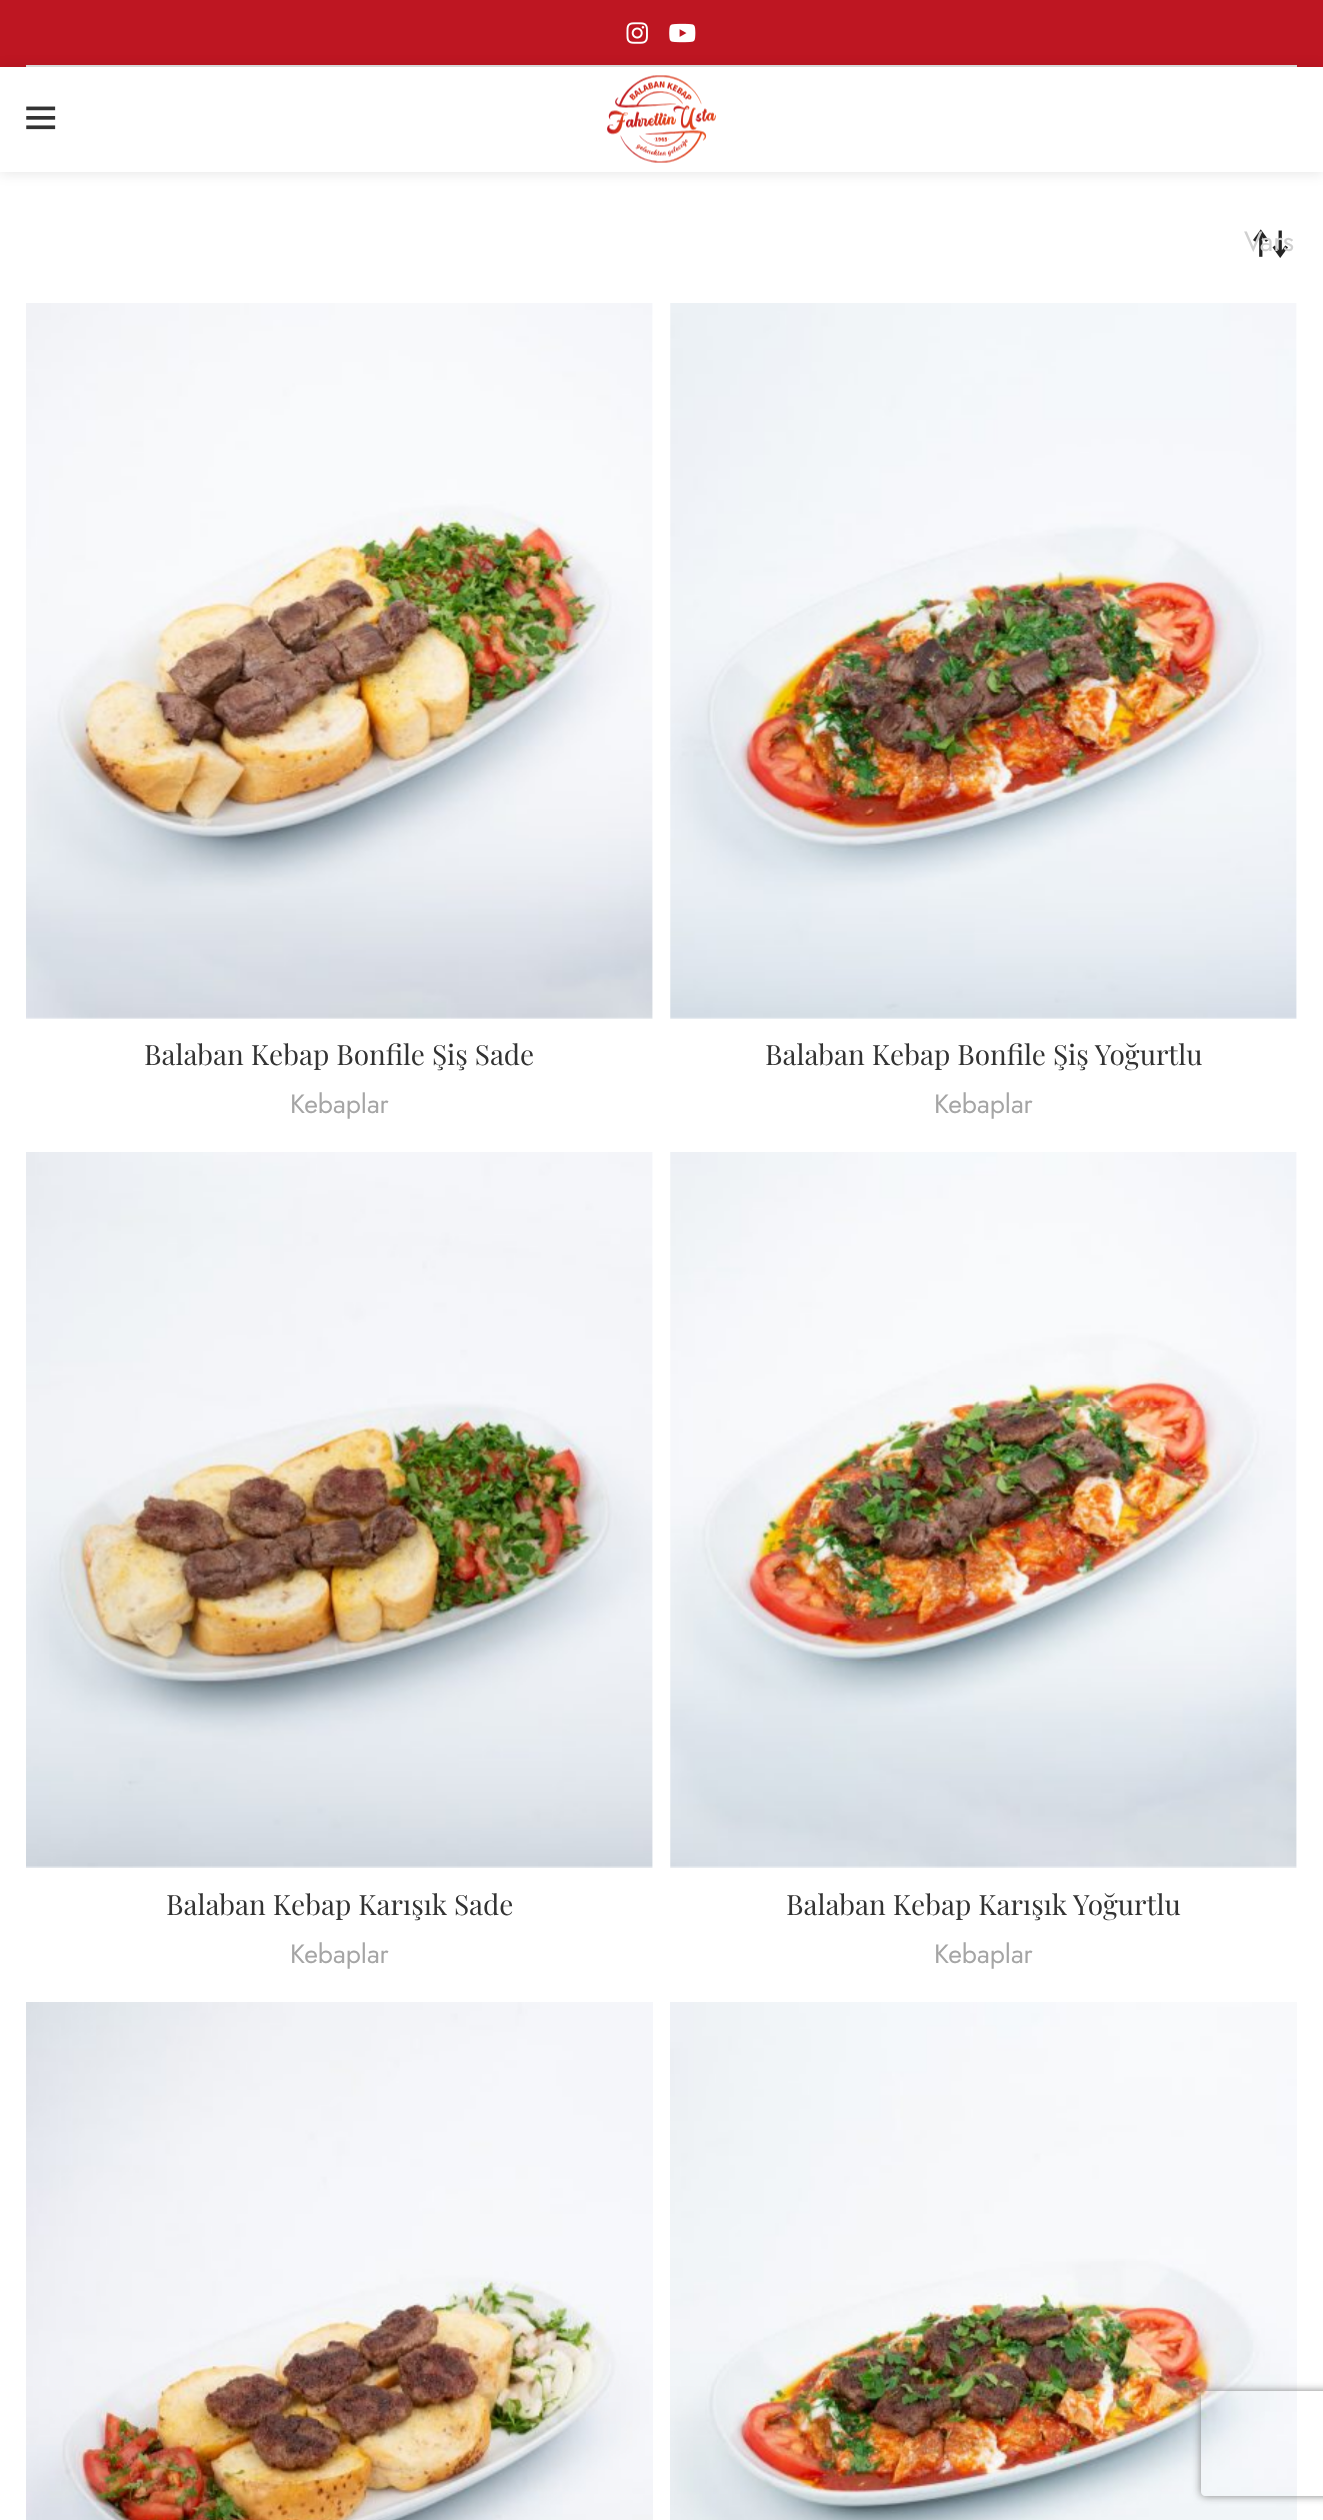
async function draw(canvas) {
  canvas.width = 1323
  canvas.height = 2520
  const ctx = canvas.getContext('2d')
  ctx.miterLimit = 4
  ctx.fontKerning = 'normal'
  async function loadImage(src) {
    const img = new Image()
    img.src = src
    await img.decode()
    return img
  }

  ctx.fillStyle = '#fff'
  ctx.fillRect(0, 0, 1323, 2520)
  ctx.fillStyle = '#be1622'
  ctx.fillRect(0, 0, 1323, 67)
  ctx.fillStyle = '#e0e0e0'
  ctx.fillRect(26, 65, 1271, 2)
  ctx.drawImage(await loadImage('image0.png'), 626, 22, 22, 22)
  ctx.drawImage(await loadImage('image1.png'), 669, 23, 27, 20)
  ctx.fillStyle = '#0000001a'
  ctx.filter = 'blur(7px)'
  ctx.beginPath()
  ctx.rect(0, 68, 1323, 105)
  ctx.fill()
  ctx.filter = 'none'
  ctx.fillStyle = '#fff'
  ctx.fillRect(0, 67, 1323, 105)
  ctx.drawImage(await loadImage('image2.png'), 26, 106, 30, 24)
  ctx.drawImage(await loadImage('image3.png'), 607, 75, 109, 88)
  ctx.drawImage(await loadImage('image4.png'), 1253, 229, 35, 29)
  ctx.font = '28px Jost'
  ctx.fillStyle = '#d0d0d0'
  ctx.fillText('Vars', 1244, 251)
  ctx.drawImage(await loadImage('image5.png'), 26, 303, 627, 716)
  ctx.font = '28px Playfair Display'
  ctx.fillStyle = '#333'
  ctx.fillText('Balaban Kebap Bonfile Şiş Sade', 144, 1065)
  ctx.font = '26.5px Jost'
  ctx.fillStyle = '#a5a5a5'
  ctx.fillText('Kebaplar', 290, 1113)
  ctx.drawImage(await loadImage('image6.png'), 670, 303, 627, 716)
  ctx.font = '28px Playfair Display'
  ctx.fillStyle = '#333'
  ctx.fillText('Balaban Kebap Bonfile Şiş Yoğurtlu', 765, 1065)
  ctx.font = '26.5px Jost'
  ctx.fillStyle = '#a5a5a5'
  ctx.fillText('Kebaplar', 934, 1113)
  ctx.drawImage(await loadImage('image7.png'), 26, 1152, 627, 716)
  ctx.font = '28px Playfair Display'
  ctx.fillStyle = '#333'
  ctx.fillText('Balaban Kebap Karışık Sade', 166, 1915)
  ctx.font = '26.5px Jost'
  ctx.fillStyle = '#a5a5a5'
  ctx.fillText('Kebaplar', 290, 1963)
  ctx.drawImage(await loadImage('image8.png'), 670, 1152, 627, 716)
  ctx.font = '28px Playfair Display'
  ctx.fillStyle = '#333'
  ctx.fillText('Balaban Kebap Karışık Yoğurtlu', 786, 1915)
  ctx.font = '26.5px Jost'
  ctx.fillStyle = '#a5a5a5'
  ctx.fillText('Kebaplar', 934, 1963)
  ctx.drawImage(await loadImage('image9.png'), 26, 2002, 627, 518)
  ctx.drawImage(await loadImage('image10.png'), 670, 2002, 627, 518)
  ctx.save()
  ctx.beginPath()
  ctx.moveTo(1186, 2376)
  ctx.lineTo(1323, 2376)
  ctx.lineTo(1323, 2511)
  ctx.lineTo(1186, 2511)
  ctx.closePath()
  ctx.moveTo(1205, 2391)
  ctx.lineTo(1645, 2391)
  ctx.bezierCurveTo(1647, 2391, 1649, 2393, 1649, 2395)
  ctx.lineTo(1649, 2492)
  ctx.bezierCurveTo(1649, 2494, 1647, 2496, 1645, 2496)
  ctx.lineTo(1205, 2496)
  ctx.bezierCurveTo(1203, 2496, 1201, 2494, 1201, 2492)
  ctx.lineTo(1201, 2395)
  ctx.bezierCurveTo(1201, 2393, 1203, 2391, 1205, 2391)
  ctx.closePath()
  ctx.clip('evenodd')
  ctx.fillStyle = '#808080'
  ctx.filter = 'blur(4.5px)'
  ctx.beginPath()
  ctx.roundRect(1201, 2391, 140, 105, 4)
  ctx.fill()
  ctx.filter = 'none'
  ctx.restore()
}

draw(document.querySelector('canvas'))
